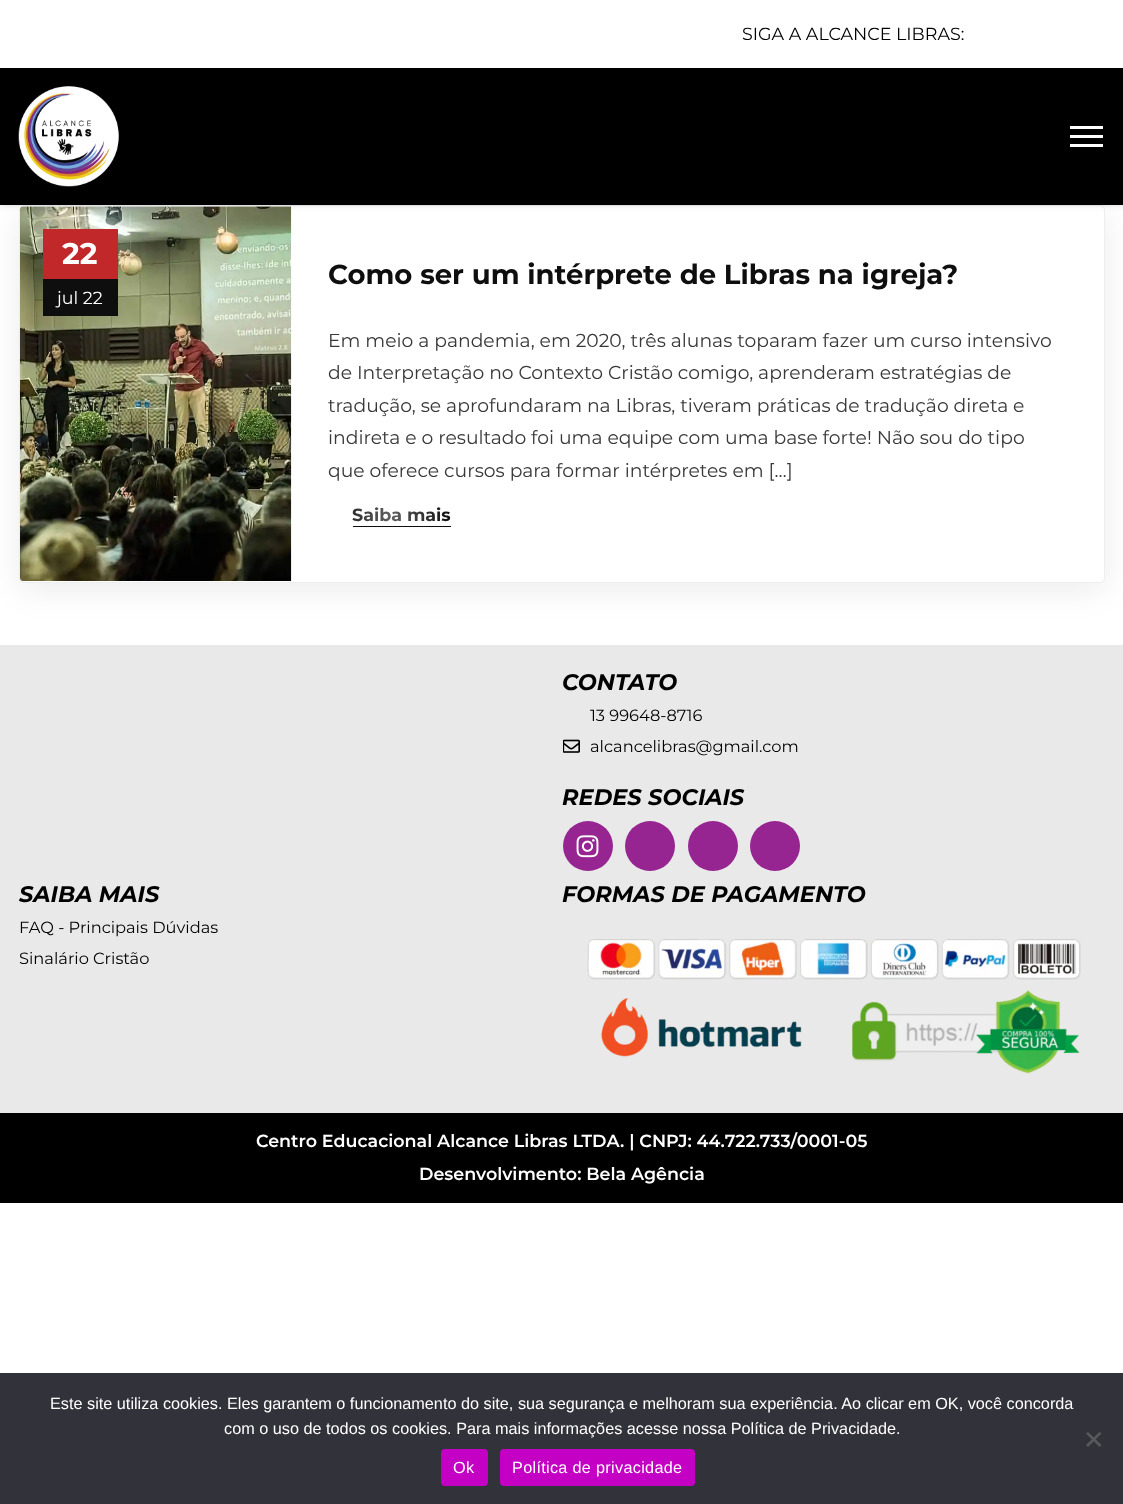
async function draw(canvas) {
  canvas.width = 1123
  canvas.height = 1504
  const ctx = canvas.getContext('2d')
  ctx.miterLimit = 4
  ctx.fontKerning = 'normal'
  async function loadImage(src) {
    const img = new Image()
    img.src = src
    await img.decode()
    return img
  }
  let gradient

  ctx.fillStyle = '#fff'
  ctx.fillRect(0, 0, 1123, 1504)
  ctx.fillStyle = '#0b0b0b14'
  ctx.filter = 'blur(15px)'
  ctx.beginPath()
  ctx.roundRect(19, 213, 1086, 377, 5)
  ctx.fill()
  ctx.filter = 'none'
  ctx.fillStyle = '#fff'
  ctx.beginPath()
  ctx.roundRect(19.5, 205.5, 1085, 377, 4.5)
  ctx.fill()
  ctx.strokeStyle = '#eeeeef'
  ctx.stroke()
  ctx.drawImage(await loadImage('image1.png'), 20, 206, 272, 375)
  ctx.fillStyle = '#00000026'
  ctx.filter = 'blur(3px)'
  ctx.beginPath()
  ctx.rect(0, 0, 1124, 205)
  ctx.fill()
  ctx.filter = 'none'
  ctx.fillStyle = '#fff'
  ctx.fillRect(0, 0, 1123, 68)
  ctx.font = '17.5px Montserrat'
  ctx.fillStyle = '#000'
  ctx.fillText('SIGA A ALCANCE LIBRAS:', 742, 40)
  ctx.fillRect(0, 68, 1123, 137)
  ctx.drawImage(await loadImage('image0.png'), 18, 86, 101, 101)
  ctx.fillStyle = '#fff'
  ctx.fillRect(1070, 126, 33, 3)
  ctx.fillRect(1070, 135, 33, 3)
  ctx.fillRect(1070, 144, 33, 3)
  ctx.fillStyle = '#c1282a'
  ctx.fillRect(43, 229, 75, 50)
  ctx.font = 'bold 30px Montserrat'
  ctx.fillStyle = '#fff'
  ctx.fillText('22', 62, 264)
  ctx.fillStyle = '#0e0e0e'
  ctx.fillRect(43, 279, 75, 37)
  ctx.font = '17.5px Montserrat'
  ctx.fillStyle = '#fff'
  ctx.fillText('jul 22', 57, 304)
  ctx.font = 'bold 27.5px Montserrat'
  ctx.fillStyle = '#0e0e0e'
  ctx.fillText('Como ser um intérprete de Libras na igreja?', 328, 284)
  ctx.font = '18.75px Montserrat'
  ctx.fillStyle = '#383838'
  ctx.fillText('Em meio a pandemia, em 2020, três alunas toparam fazer um curso intensivo', 328, 347)
  ctx.fillText('de Interpretação no Contexto Cristão comigo, aprenderam estratégias de', 328, 379)
  ctx.fillText('tradução, se aprofundaram na Libras, tiveram práticas de tradução direta e', 328, 412)
  ctx.fillText('indireta e o resultado foi uma equipe com uma base forte! Não sou do tipo', 328, 444)
  ctx.fillText('que oferece cursos para formar intérpretes em […]', 328, 477)
  ctx.font = 'bold 17.5px Montserrat'
  gradient = ctx.createLinearGradient(328, 514, 451, 514)
  gradient.addColorStop(0, '#0e0e0e')
  gradient.addColorStop(0.5, '#606060')
  gradient.addColorStop(1, '#0e0e0e')
  ctx.fillStyle = gradient
  ctx.fillText('Saiba mais', 352, 521)
  ctx.fillStyle = '#0e0e0e'
  ctx.fillRect(353, 526, 98, 1)
  ctx.fillStyle = '#e9e9e9'
  ctx.fillRect(0, 645, 1123, 468)
  ctx.font = 'italic bold 22.5px Montserrat'
  ctx.fillStyle = '#000'
  ctx.fillText('CONTATO', 562, 690)
  ctx.font = '16.25px Montserrat'
  ctx.fillText('13 99648-8716', 590, 721)
  ctx.drawImage(await loadImage('image2.png'), 563, 739, 17, 14)
  ctx.fillText('alcancelibras@gmail.com', 590, 752)
  ctx.font = 'italic bold 22.5px Montserrat'
  ctx.fillText('REDES SOCIAIS', 562, 805)
  ctx.fillStyle = '#972591'
  ctx.beginPath()
  ctx.arc(588, 846, 25, 0, 2 * Math.PI)
  ctx.fill()
  ctx.drawImage(await loadImage('image3.png'), 576, 835, 23, 23)
  ctx.beginPath()
  ctx.arc(650, 846, 25, 0, 2 * Math.PI)
  ctx.fill()
  ctx.beginPath()
  ctx.arc(713, 846, 25, 0, 2 * Math.PI)
  ctx.fill()
  ctx.beginPath()
  ctx.arc(775, 846, 25, 0, 2 * Math.PI)
  ctx.fill()
  ctx.fillStyle = '#000'
  ctx.fillText('SAIBA MAIS', 19, 902)
  ctx.font = '16.25px Montserrat'
  ctx.fillText('FAQ - Principais Dúvidas', 19, 933)
  ctx.fillText('Sinalário Cristão', 19, 964)
  ctx.font = 'italic bold 22.5px Montserrat'
  ctx.fillText('FORMAS DE PAGAMENTO', 562, 902)
  ctx.drawImage(await loadImage('image4.png'), 587, 939, 494, 135)
  ctx.fillRect(0, 1113, 1123, 90)
  ctx.font = '600 17.5px Montserrat'
  ctx.fillStyle = '#fff'
  ctx.fillText('Centro Educacional Alcance Libras LTDA. | CNPJ: 44.722.733/0001-05', 256, 1147)
  ctx.fillText('Desenvolvimento: Bela Agência', 419, 1180)
  ctx.fillStyle = '#32323a'
  ctx.fillRect(0, 1373, 1123, 131)
  ctx.font = '16.25px Liberation Sans'
  ctx.fillStyle = '#fff'
  ctx.fillText('Este site utiliza cookies. Eles garantem o funcionamento do site, sua segurança e melhoram sua experiência. Ao clicar em OK, você concorda', 50, 1409)
  ctx.fillText('com o uso de todos os cookies. Para mais informações acesse nossa Política de Privacidade.', 224, 1434)
  ctx.fillStyle = '#59595d'
  ctx.beginPath()
  ctx.moveTo(1099.5, 1432)
  ctx.lineTo(1101.5, 1433.5)
  ctx.lineTo(1088, 1447)
  ctx.lineTo(1086, 1445)
  ctx.closePath()
  ctx.fill()
  ctx.beginPath()
  ctx.moveTo(1086, 1433.5)
  ctx.lineTo(1088, 1432)
  ctx.lineTo(1101.5, 1445)
  ctx.lineTo(1099.5, 1447)
  ctx.closePath()
  ctx.fill()
  ctx.fillStyle = '#c400c4'
  ctx.beginPath()
  ctx.roundRect(441, 1449, 47, 37, 4)
  ctx.fill()
  ctx.letterSpacing = '0.3px'
  ctx.fillStyle = '#fff'
  ctx.fillText('Ok', 453, 1473)
  ctx.fillStyle = '#c400c4'
  ctx.beginPath()
  ctx.roundRect(500, 1449, 195, 37, 4)
  ctx.fill()
  ctx.fillStyle = '#fff'
  ctx.fillText('Política de privacidade', 512, 1473)
}

draw(document.querySelector('canvas'))
